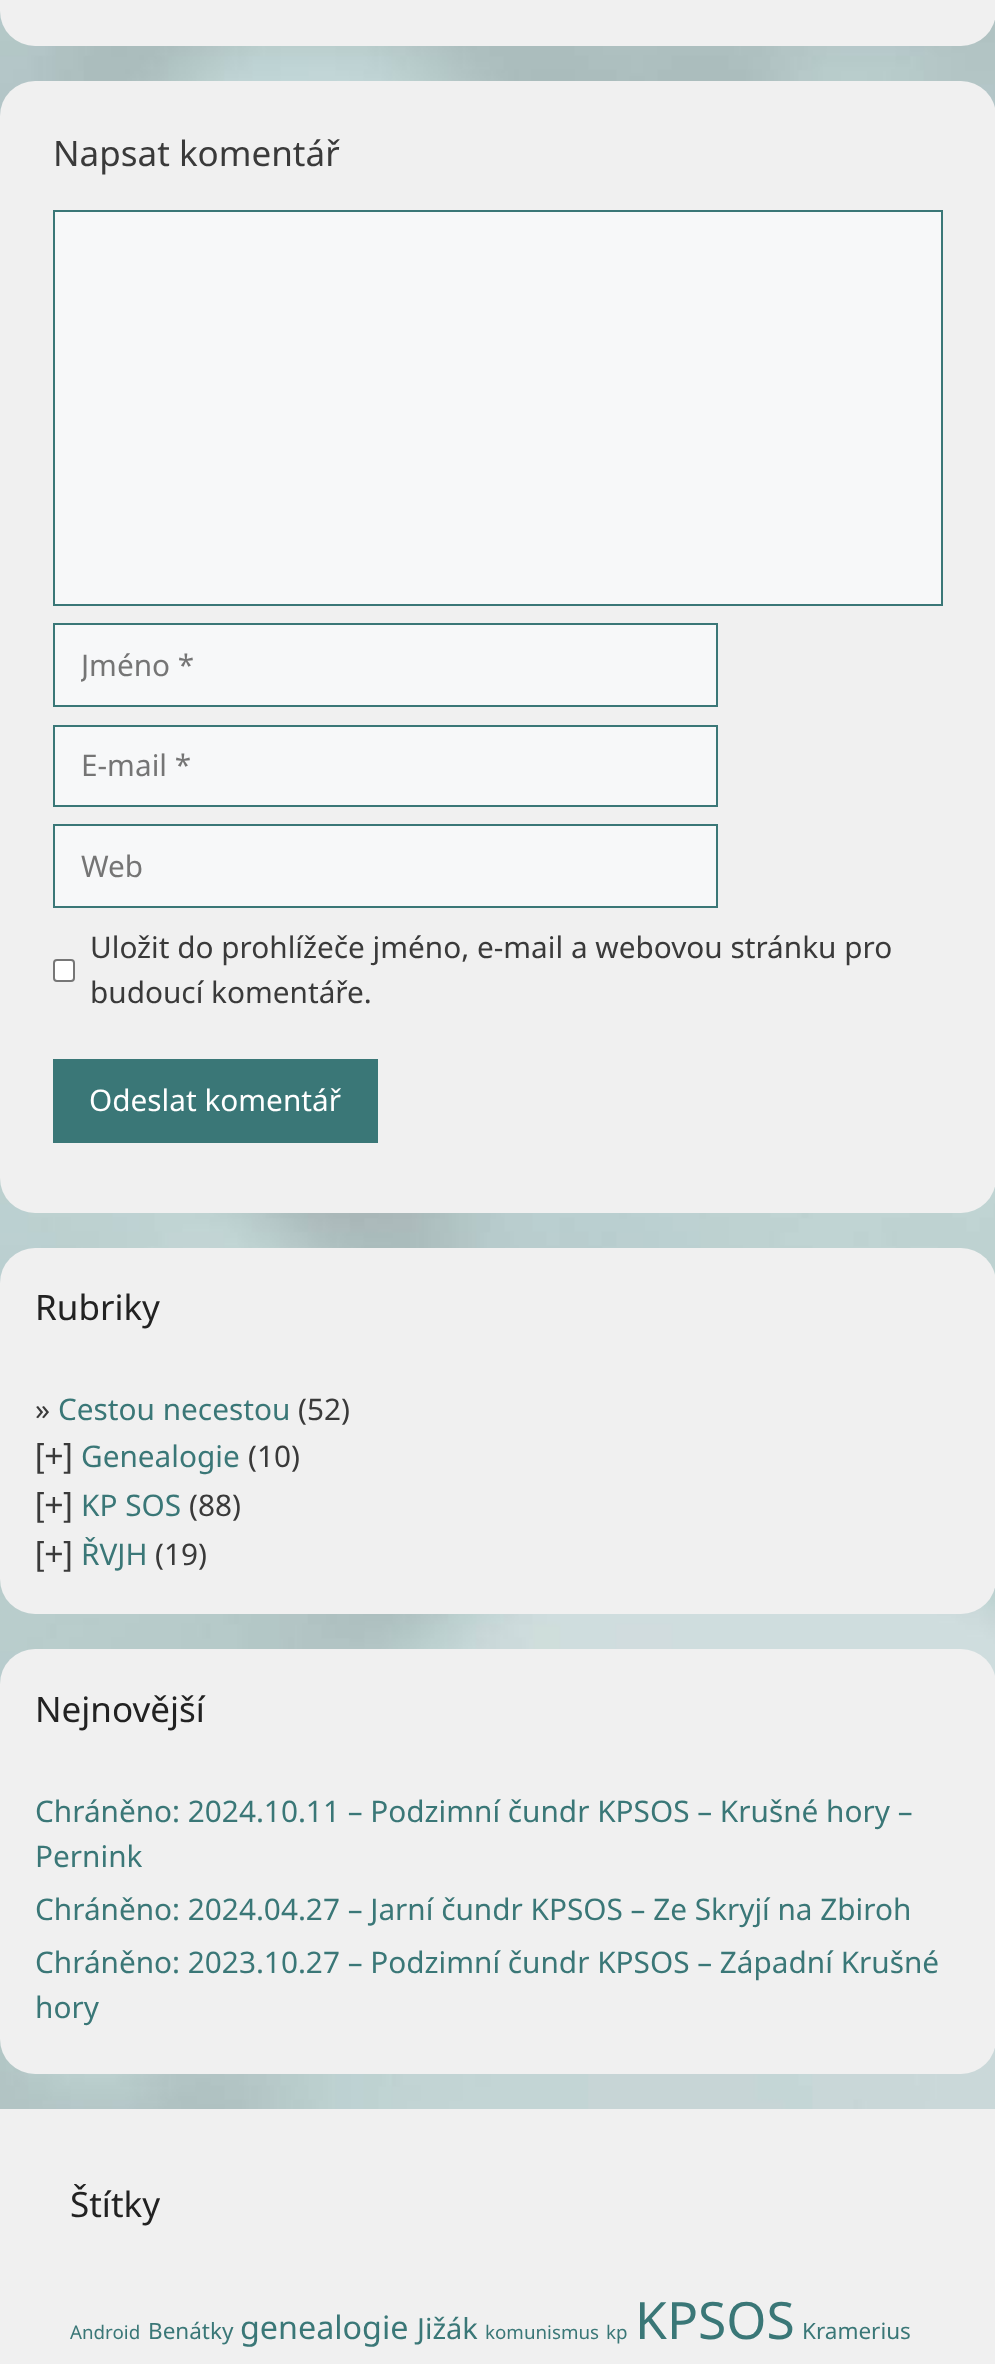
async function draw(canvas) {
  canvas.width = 995
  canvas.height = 2364
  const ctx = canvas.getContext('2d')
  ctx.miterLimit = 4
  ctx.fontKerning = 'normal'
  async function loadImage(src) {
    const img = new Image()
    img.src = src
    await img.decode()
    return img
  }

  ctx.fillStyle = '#fff'
  ctx.fillRect(0, 0, 995, 2364)
  ctx.drawImage(await loadImage('image0.png'), 0, 11, 995, 2098)
  ctx.fillStyle = '#f0f0f0'
  ctx.beginPath()
  ctx.roundRect(0, -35, 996, 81, 35)
  ctx.fill()
  ctx.beginPath()
  ctx.roundRect(0, 81, 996, 1132, 35)
  ctx.fill()
  ctx.font = '35px Noto Sans'
  ctx.fillStyle = '#3a3a3a'
  ctx.fillText('Napsat komentář', 53, 166)
  ctx.fillStyle = '#f7f8f9'
  ctx.beginPath()
  ctx.rect(54, 211, 888, 394)
  ctx.fill()
  ctx.strokeStyle = '#3a7777'
  ctx.lineWidth = 2
  ctx.stroke()
  ctx.beginPath()
  ctx.rect(54, 624, 663, 82)
  ctx.fill()
  ctx.stroke()
  ctx.save()
  ctx.beginPath()
  ctx.rect(81, 644, 609, 40)
  ctx.clip()
  ctx.font = '29.75px Noto Sans'
  ctx.fillStyle = '#757575'
  ctx.fillText('Jméno *', 81, 676)
  ctx.restore()
  ctx.beginPath()
  ctx.rect(54, 726, 663, 80)
  ctx.fill()
  ctx.stroke()
  ctx.font = '29.75px Noto Sans'
  ctx.fillStyle = '#757575'
  ctx.fillText('E-mail *', 81, 776)
  ctx.fillStyle = '#f7f8f9'
  ctx.beginPath()
  ctx.rect(54, 825, 663, 82)
  ctx.fill()
  ctx.stroke()
  ctx.fillStyle = '#757575'
  ctx.fillText('Web', 81, 877)
  ctx.fillStyle = '#fff'
  ctx.beginPath()
  ctx.roundRect(54, 960, 20, 21, 3)
  ctx.fill()
  ctx.strokeStyle = '#767676'
  ctx.stroke()
  ctx.fillStyle = '#3a3a3a'
  ctx.fillText('Uložit do prohlížeče jméno, e-mail a webovou stránku pro', 90, 958)
  ctx.fillText('budoucí komentáře.', 90, 1003)
  ctx.fillStyle = '#3a7777'
  ctx.fillRect(53, 1059, 325, 84)
  ctx.fillStyle = '#fff'
  ctx.fillText('Odeslat komentář', 89, 1111)
  ctx.fillStyle = '#f0f0f0'
  ctx.beginPath()
  ctx.roundRect(0, 1248, 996, 366, 35)
  ctx.fill()
  ctx.font = '35px Noto Sans'
  ctx.fillStyle = '#222'
  ctx.fillText('Rubriky', 35, 1320)
  ctx.font = '29.75px Noto Sans'
  ctx.fillStyle = '#3a3a3a'
  ctx.fillText('»', 35, 1420)
  ctx.fillStyle = '#3a7777'
  ctx.fillText('Cestou necestou', 58, 1420)
  ctx.fillStyle = '#3a3a3a'
  ctx.fillText('(52)', 298, 1420)
  ctx.font = '33px Liberation Sans'
  ctx.fillText('[+]', 35, 1467)
  ctx.font = '29.75px Noto Sans'
  ctx.fillStyle = '#3a7777'
  ctx.fillText('Genealogie', 81, 1467)
  ctx.fillStyle = '#3a3a3a'
  ctx.fillText('(10)', 248, 1467)
  ctx.font = '33px Liberation Sans'
  ctx.fillText('[+]', 35, 1516)
  ctx.font = '29.75px Noto Sans'
  ctx.fillStyle = '#3a7777'
  ctx.fillText('KP SOS', 81, 1516)
  ctx.fillStyle = '#3a3a3a'
  ctx.fillText('(88)', 189, 1516)
  ctx.font = '33px Liberation Sans'
  ctx.fillText('[+]', 35, 1565)
  ctx.font = '29.75px Noto Sans'
  ctx.fillStyle = '#3a7777'
  ctx.fillText('ŘVJH', 81, 1565)
  ctx.fillStyle = '#3a3a3a'
  ctx.fillText('(19)', 155, 1565)
  ctx.fillStyle = '#f0f0f0'
  ctx.beginPath()
  ctx.roundRect(0, 1649, 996, 425, 35)
  ctx.fill()
  ctx.font = '35px Noto Sans'
  ctx.fillStyle = '#222'
  ctx.fillText('Nejnovější', 35, 1722)
  ctx.font = '29.75px Noto Sans'
  ctx.fillStyle = '#3a7777'
  ctx.fillText('Chráněno: 2024.10.11 – Podzimní čundr KPSOS – Krušné hory –', 35, 1822)
  ctx.fillText('Pernink', 35, 1867)
  ctx.fillText('Chráněno: 2024.04.27 – Jarní čundr KPSOS – Ze Skryjí na Zbiroh', 35, 1920)
  ctx.fillText('Chráněno: 2023.10.27 – Podzimní čundr KPSOS – Západní Krušné', 35, 1973)
  ctx.fillText('hory', 35, 2018)
  ctx.fillStyle = '#f0f0f0'
  ctx.fillRect(0, 2109, 995, 255)
  ctx.font = '35px Noto Sans'
  ctx.fillStyle = '#222'
  ctx.fillText('Štítky', 70, 2217)
  ctx.font = '18.75px Noto Sans'
  ctx.fillStyle = '#3a7777'
  ctx.fillText('Android', 70, 2339)
  ctx.font = '22.5px Noto Sans'
  ctx.fillText('Benátky', 148, 2339)
  ctx.font = '32.25px Noto Sans'
  ctx.fillText('genealogie', 240, 2339)
  ctx.font = '29px Noto Sans'
  ctx.fillText('Jižák', 417, 2339)
  ctx.font = '18.75px Noto Sans'
  ctx.fillText('komunismus', 485, 2339)
  ctx.fillText('kp', 606, 2339)
  ctx.font = '51.5px Noto Sans'
  ctx.fillText('KPSOS', 635, 2339)
  ctx.font = '22.5px Noto Sans'
  ctx.fillText('Kramerius', 802, 2339)
}

draw(document.querySelector('canvas'))
